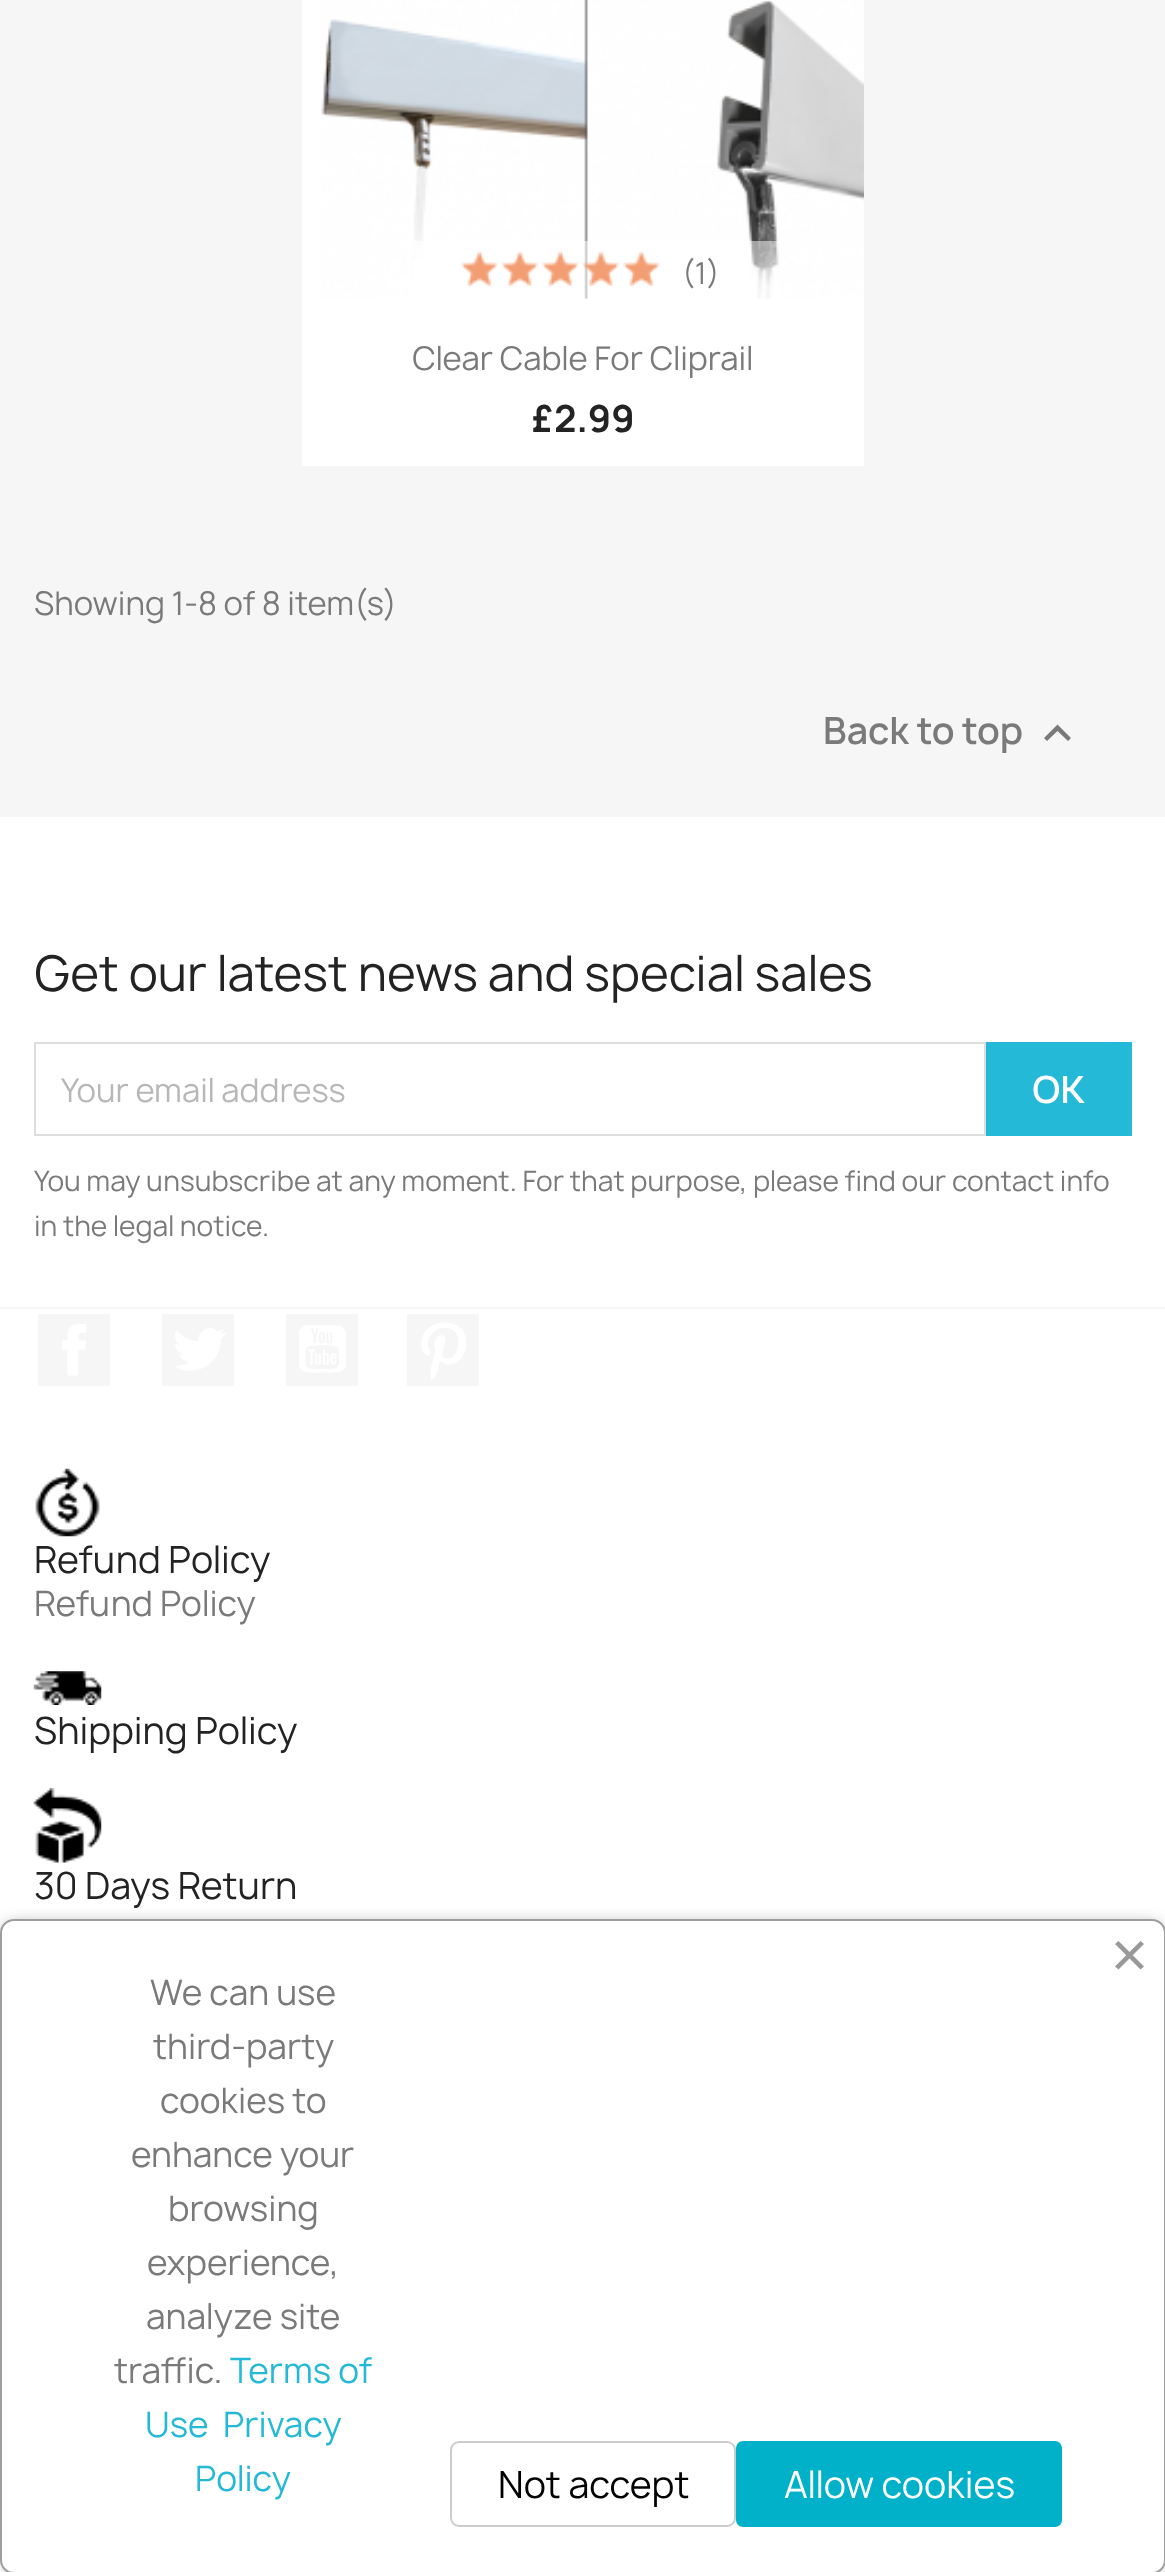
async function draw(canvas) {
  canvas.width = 1165
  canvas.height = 2572
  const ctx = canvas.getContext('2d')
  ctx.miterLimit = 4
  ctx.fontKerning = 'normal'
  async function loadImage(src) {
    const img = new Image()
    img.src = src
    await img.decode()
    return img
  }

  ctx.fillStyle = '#fff'
  ctx.fillRect(0, 0, 1165, 2572)
  ctx.fillStyle = '#f6f6f6'
  ctx.fillRect(0, 0, 1165, 817)
  ctx.fillStyle = '#fff'
  ctx.fillRect(302, 0, 562, 466)
  ctx.drawImage(await loadImage('image0.png'), 321, 0, 543, 299)
  ctx.fillStyle = '#ffffff80'
  ctx.fillRect(414, 241, 365, 58)
  ctx.drawImage(await loadImage('image1.png'), 461, 251, 37, 37)
  ctx.drawImage(await loadImage('image2.png'), 501, 251, 37, 37)
  ctx.drawImage(await loadImage('image3.png'), 542, 251, 37, 37)
  ctx.drawImage(await loadImage('image4.png'), 582, 251, 37, 36)
  ctx.drawImage(await loadImage('image5.png'), 623, 251, 37, 37)
  ctx.font = '29px Manrope'
  ctx.fillStyle = '#7a7a7a'
  ctx.fillText('(1)', 682, 284)
  ctx.font = '31.5px Manrope'
  ctx.fillText('Clear Cable For Cliprail', 412, 370)
  ctx.font = 'bold 36px Manrope'
  ctx.fillStyle = '#232323'
  ctx.fillText('£2.99', 531, 432)
  ctx.font = '31.5px Manrope'
  ctx.fillStyle = '#7a7a7a'
  ctx.fillText('Showing 1-8 of 8 item(s)', 34, 615)
  ctx.font = '600 36px Manrope'
  ctx.fillText('Back to top', 823, 744)
  ctx.beginPath()
  ctx.moveTo(1047, 741)
  ctx.lineTo(1044, 738)
  ctx.lineTo(1057.5, 724.5)
  ctx.lineTo(1071, 738)
  ctx.lineTo(1068, 741)
  ctx.lineTo(1057.5, 731)
  ctx.closePath()
  ctx.fill()
  ctx.fillStyle = '#f6f6f6'
  ctx.fillRect(0, 1307, 1165, 2)
  ctx.font = '47.25px Manrope'
  ctx.fillStyle = '#232323'
  ctx.fillText('Get our latest news and special sales', 34, 991)
  ctx.strokeStyle = '#ddd'
  ctx.lineWidth = 2
  ctx.strokeRect(35, 1043, 950, 92)
  ctx.font = '31.5px Manrope'
  ctx.fillStyle = '#b7b7b7'
  ctx.fillText('Your email address', 61, 1102)
  ctx.fillStyle = '#24b9d7'
  ctx.fillRect(986, 1042, 146, 94)
  ctx.font = '600 36px Manrope'
  ctx.fillStyle = '#fff'
  ctx.fillText('OK', 1032, 1103)
  ctx.font = '27px Manrope'
  ctx.fillStyle = '#7a7a7a'
  ctx.fillText('You may unsubscribe at any moment. For that purpose, please find our contact info', 34, 1191)
  ctx.fillText('in the legal notice.', 34, 1236)
  ctx.fillStyle = '#f6f6f6'
  ctx.fillRect(38, 1314, 72, 72)
  ctx.drawImage(await loadImage('image6.png'), 62, 1324, 24, 52)
  ctx.fillRect(162, 1314, 72, 72)
  ctx.drawImage(await loadImage('image7.png'), 174, 1328, 52, 43)
  ctx.fillRect(286, 1314, 72, 72)
  ctx.drawImage(await loadImage('image8.png'), 299, 1325, 47, 48)
  ctx.fillRect(407, 1314, 72, 72)
  ctx.drawImage(await loadImage('image9.png'), 421, 1322, 45, 58)
  ctx.drawImage(await loadImage('image10.png'), 35, 1468, 65, 69)
  ctx.font = '36px Manrope'
  ctx.fillStyle = '#232323'
  ctx.fillText('Refund Policy', 34, 1573)
  ctx.font = '33.75px Manrope'
  ctx.fillStyle = '#7a7a7a'
  ctx.fillText('Refund Policy', 34, 1616)
  ctx.drawImage(await loadImage('image11.png'), 33, 1671, 69, 34)
  ctx.font = '36px Manrope'
  ctx.fillStyle = '#232323'
  ctx.fillText('Shipping Policy', 34, 1744)
  ctx.drawImage(await loadImage('image12.png'), 33, 1788, 69, 75)
  ctx.fillText('30 Days Return', 34, 1899)
  ctx.fillStyle = '#9e9e9e'
  ctx.filter = 'blur(8px)'
  ctx.beginPath()
  ctx.roundRect(5, 1924, 1156, 646, 9)
  ctx.fill()
  ctx.filter = 'none'
  ctx.fillStyle = '#fff'
  ctx.beginPath()
  ctx.roundRect(1, 1920, 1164, 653, 13)
  ctx.fill()
  ctx.strokeStyle = '#9e9e9e'
  ctx.stroke()
  ctx.fillStyle = '#999'
  ctx.beginPath()
  ctx.moveTo(1115, 1966.5)
  ctx.lineTo(1140.5, 1941)
  ctx.lineTo(1144, 1944)
  ctx.lineTo(1118.5, 1969.5)
  ctx.closePath()
  ctx.fill()
  ctx.beginPath()
  ctx.moveTo(1118.5, 1941)
  ctx.lineTo(1144, 1966.5)
  ctx.lineTo(1140.5, 1969.5)
  ctx.lineTo(1115, 1944)
  ctx.closePath()
  ctx.fill()
  ctx.font = '33.75px Manrope'
  ctx.fillStyle = '#7a7a7a'
  ctx.fillText('We can use', 150, 2005)
  ctx.fillText('third-party', 153, 2059)
  ctx.fillText('cookies to', 160, 2113)
  ctx.fillText('enhance your', 131, 2167)
  ctx.fillText('browsing', 168, 2221)
  ctx.fillText('experience,', 147, 2275)
  ctx.fillText('analyze site', 146, 2329)
  ctx.fillText('traffic.', 114, 2383)
  ctx.fillStyle = '#24b9d7'
  ctx.fillText('Terms of', 230, 2383)
  ctx.fillText('Use', 145, 2437)
  ctx.fillText('Privacy', 223, 2437)
  ctx.fillText('Policy', 195, 2491)
  ctx.beginPath()
  ctx.roundRect(451, 2442, 284, 84, 8)
  ctx.strokeStyle = '#ccc'
  ctx.stroke()
  ctx.font = '36px Manrope'
  ctx.fillStyle = '#000'
  ctx.fillText('Not accept', 498, 2498)
  ctx.fillStyle = '#00b1c9'
  ctx.beginPath()
  ctx.roundRect(737, 2442, 324, 84, 6)
  ctx.fill()
  ctx.strokeStyle = '#00b1c9'
  ctx.stroke()
  ctx.fillStyle = '#fff'
  ctx.fillText('Allow cookies', 784, 2498)
}

draw(document.querySelector('canvas'))
